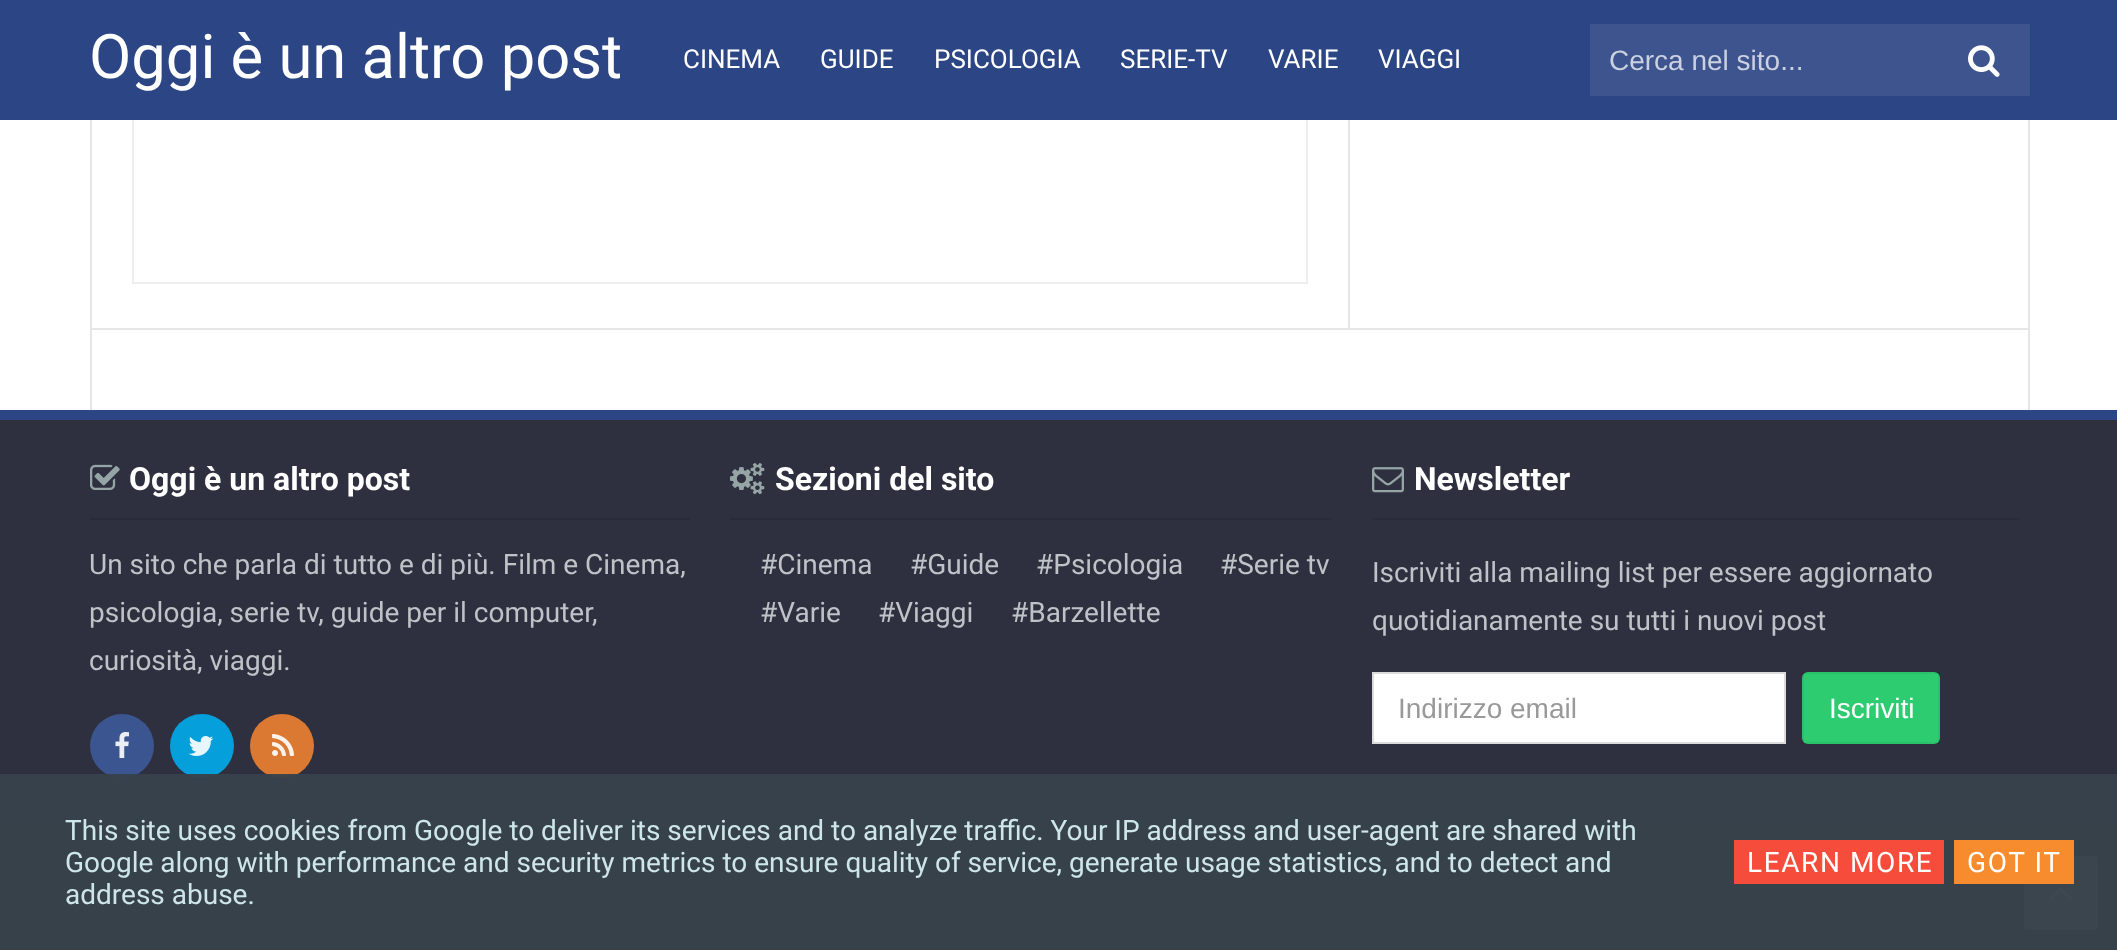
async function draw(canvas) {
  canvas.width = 2117
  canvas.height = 950
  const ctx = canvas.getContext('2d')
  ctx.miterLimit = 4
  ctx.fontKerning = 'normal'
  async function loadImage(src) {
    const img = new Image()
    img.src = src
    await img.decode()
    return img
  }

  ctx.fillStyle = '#fff'
  ctx.fillRect(0, 0, 2117, 950)
  ctx.fillStyle = '#e6e6e6'
  ctx.fillRect(2028, 120, 2, 290)
  ctx.fillRect(90, 120, 2, 290)
  ctx.fillRect(1348, 120, 2, 208)
  ctx.strokeStyle = '#eee'
  ctx.lineWidth = 2
  ctx.strokeRect(133, -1, 1174, 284)
  ctx.fillRect(92, 328, 1936, 2)
  ctx.fillStyle = '#2c4584'
  ctx.fillRect(0, 0, 2117, 120)
  ctx.font = '61.5px Roboto'
  ctx.fillStyle = '#fff'
  ctx.fillText('Oggi è un altro post', 89, 78)
  ctx.font = '26px Roboto'
  ctx.fillText('CINEMA', 683, 68)
  ctx.fillText('GUIDE', 820, 68)
  ctx.fillText('PSICOLOGIA', 934, 68)
  ctx.fillText('SERIE-TV', 1120, 68)
  ctx.fillText('VARIE', 1268, 68)
  ctx.fillText('VIAGGI', 1378, 68)
  ctx.fillStyle = '#3d548f'
  ctx.fillRect(1590, 24, 440, 72)
  ctx.font = '28px Liberation Sans'
  ctx.fillStyle = '#cbd1e1'
  ctx.fillText('Cerca nel sito...', 1609, 70)
  ctx.drawImage(await loadImage('image0.png'), 1968, 45, 32, 32)
  ctx.fillStyle = '#2f303f'
  ctx.fillRect(0, 420, 2117, 402)
  ctx.fillStyle = '#2c4584'
  ctx.fillRect(0, 410, 2117, 10)
  ctx.fillStyle = '#2a2b39'
  ctx.fillRect(90, 820, 1940, 2)
  ctx.fillRect(90, 518, 600, 2)
  ctx.drawImage(await loadImage('image1.png'), 90, 464, 30, 26)
  ctx.font = 'bold 32px Roboto'
  ctx.fillStyle = '#fff'
  ctx.fillText('Oggi è un altro post', 129, 490)
  ctx.font = '28px Roboto'
  ctx.fillStyle = '#bdc3c7'
  ctx.fillText('Un sito che parla di tutto e di più. Film e Cinema,', 89, 574)
  ctx.fillText('psicologia, serie tv, guide per il computer,', 89, 622)
  ctx.fillText('curiosità, viaggi.', 89, 670)
  ctx.fillStyle = '#3a558f'
  ctx.beginPath()
  ctx.arc(122, 746, 32, 0, 2 * Math.PI)
  ctx.fill()
  ctx.drawImage(await loadImage('image2.png'), 115, 732, 14, 26)
  ctx.fillStyle = '#05a0dc'
  ctx.beginPath()
  ctx.arc(202, 746, 32, 0, 2 * Math.PI)
  ctx.fill()
  ctx.drawImage(await loadImage('image3.png'), 188, 736, 26, 20)
  ctx.fillStyle = '#db7831'
  ctx.beginPath()
  ctx.arc(282, 746, 32, 0, 2 * Math.PI)
  ctx.fill()
  ctx.drawImage(await loadImage('image4.png'), 272, 734, 22, 22)
  ctx.fillStyle = '#2a2b39'
  ctx.fillRect(730, 518, 602, 2)
  ctx.drawImage(await loadImage('image5.png'), 730, 462, 35, 33)
  ctx.font = 'bold 32px Roboto'
  ctx.fillStyle = '#fff'
  ctx.fillText('Sezioni del sito', 775, 490)
  ctx.font = '28px Roboto'
  ctx.fillStyle = '#bdc3c7'
  ctx.fillText('#Cinema', 760, 574)
  ctx.fillText('#Guide', 910, 574)
  ctx.fillText('#Psicologia', 1036, 574)
  ctx.fillText('#Serie tv', 1220, 574)
  ctx.fillText('#Varie', 760, 622)
  ctx.fillText('#Viaggi', 878, 622)
  ctx.fillText('#Barzellette', 1011, 622)
  ctx.fillStyle = '#2a2b39'
  ctx.fillRect(1372, 518, 648, 2)
  ctx.drawImage(await loadImage('image6.png'), 1372, 467, 32, 26)
  ctx.font = 'bold 32px Roboto'
  ctx.fillStyle = '#fff'
  ctx.fillText('Newsletter', 1414, 490)
  ctx.font = '28px Roboto'
  ctx.fillStyle = '#bdc3c7'
  ctx.fillText('Iscriviti alla mailing list per essere aggiornato', 1372, 582)
  ctx.fillText('quotidianamente su tutti i nuovi post', 1372, 630)
  ctx.fillStyle = '#fff'
  ctx.beginPath()
  ctx.rect(1373, 673, 412, 70)
  ctx.fill()
  ctx.strokeStyle = '#dbdbdb'
  ctx.stroke()
  ctx.font = '28px Liberation Sans'
  ctx.fillStyle = '#999'
  ctx.fillText('Indirizzo email', 1398, 718)
  ctx.fillStyle = '#2ecc71'
  ctx.beginPath()
  ctx.roundRect(1802, 672, 138, 72, 6)
  ctx.fill()
  ctx.strokeStyle = '#0000000d'
  ctx.strokeRect(1803, 673, 136, 70)
  ctx.fillStyle = '#fff'
  ctx.fillText('Iscriviti', 1829, 718)
  ctx.fillStyle = '#252632'
  ctx.fillRect(0, 822, 2117, 128)
  ctx.fillStyle = '#95a5a6'
  ctx.beginPath()
  ctx.roundRect(2024, 856, 74, 74, 4)
  ctx.fill()
  ctx.drawImage(await loadImage('image7.png'), 2049, 887, 23, 13)
  ctx.fillStyle = '#38424bf7'
  ctx.fillRect(0, 774, 2117, 176)
  ctx.font = '28px Roboto'
  ctx.fillStyle = '#cee6ea'
  ctx.fillText('This site uses cookies from Google to deliver its services and to analyze traffic. Your IP address and user-agent are shared with', 65, 840)
  ctx.fillText('Google along with performance and security metrics to ensure quality of service, generate usage statistics, and to detect and', 65, 872)
  ctx.fillText('address abuse.', 65, 904)
  ctx.fillStyle = '#f64c3b'
  ctx.fillRect(1734, 840, 210, 44)
  ctx.letterSpacing = '1.6px'
  ctx.fillStyle = '#fff'
  ctx.fillText('LEARN MORE', 1747, 872)
  ctx.fillStyle = '#f68c2e'
  ctx.fillRect(1954, 840, 120, 44)
  ctx.fillStyle = '#fff'
  ctx.fillText('GOT IT', 1967, 872)
}

draw(document.querySelector('canvas'))
